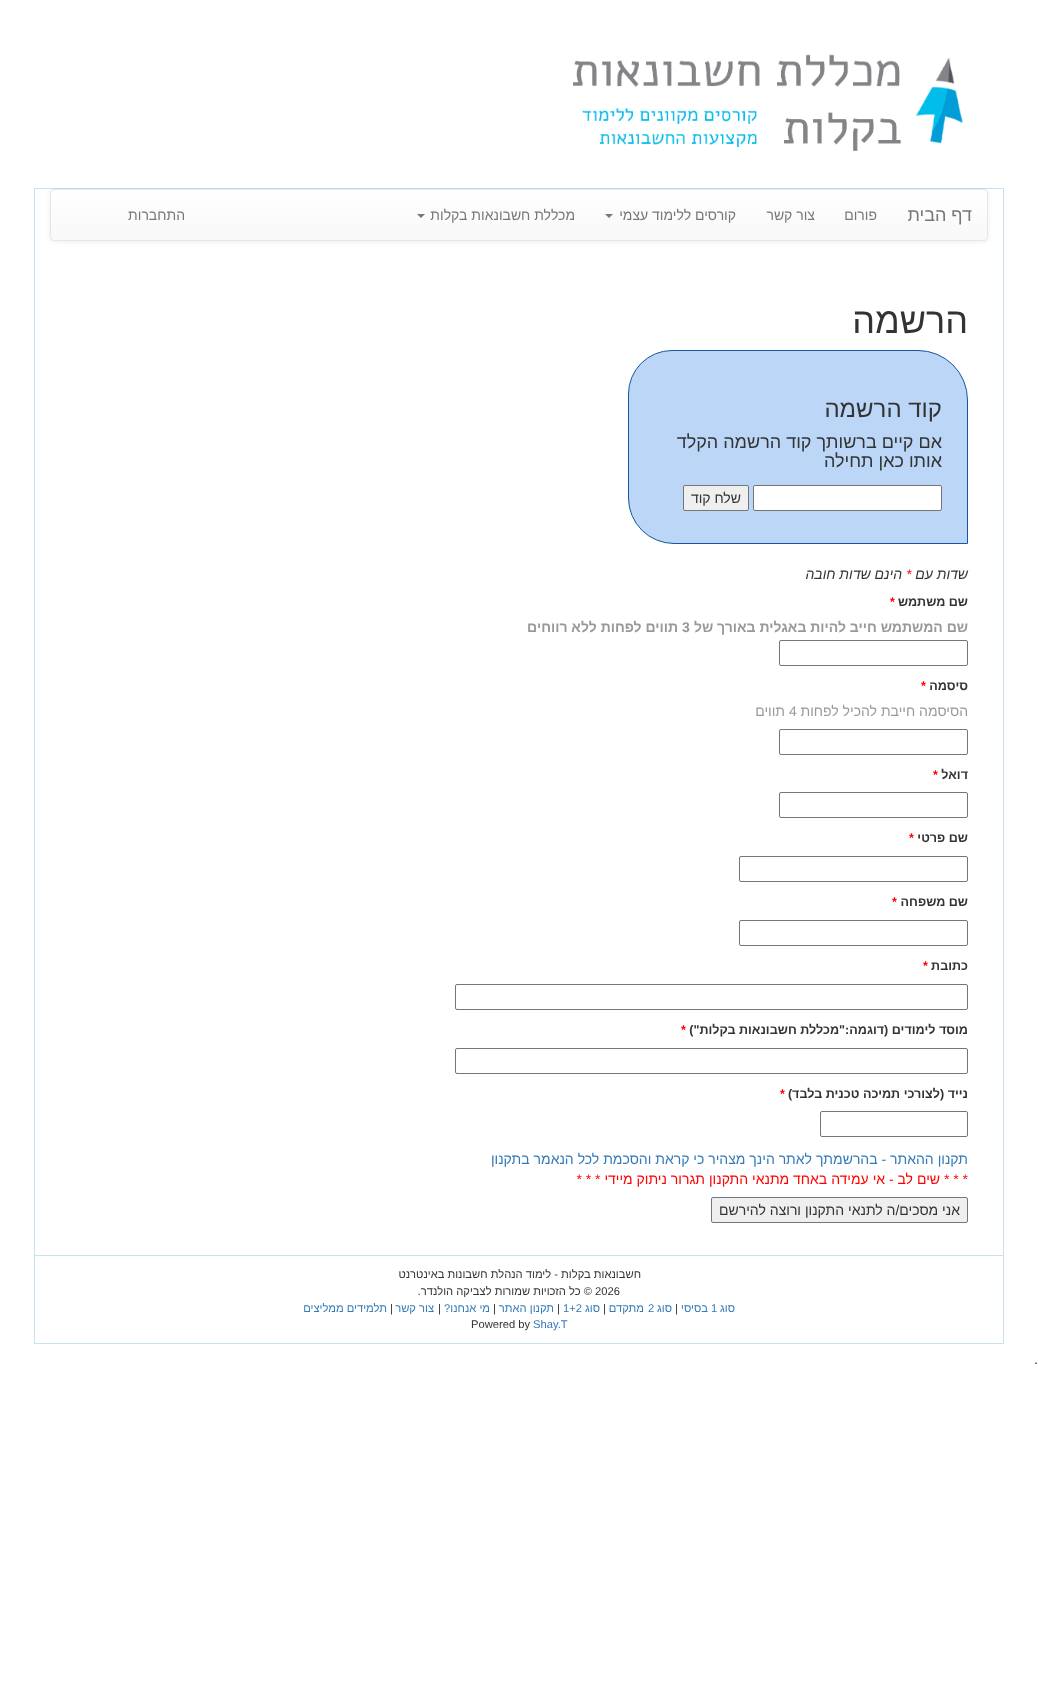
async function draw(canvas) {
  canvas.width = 1038
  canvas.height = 1683
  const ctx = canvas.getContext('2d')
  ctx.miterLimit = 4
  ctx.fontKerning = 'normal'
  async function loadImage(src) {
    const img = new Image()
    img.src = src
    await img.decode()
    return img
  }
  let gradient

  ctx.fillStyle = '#fff'
  ctx.fillRect(0, 0, 1038, 1683)
  ctx.drawImage(await loadImage('image0.png'), 573, 54, 390, 97)
  ctx.strokeStyle = '#c9e0ed'
  ctx.strokeRect(34.5, 188.5, 969, 1155)
  ctx.fillStyle = '#00000012'
  ctx.filter = 'blur(2.5px)'
  ctx.beginPath()
  ctx.roundRect(50, 190, 938, 52, 4)
  ctx.fill()
  ctx.filter = 'none'
  ctx.save()
  ctx.beginPath()
  ctx.roundRect(50, 189, 938, 52, 4)
  ctx.clip()
  gradient = ctx.createLinearGradient(519, 190, 519, 240)
  gradient.addColorStop(0, '#fff')
  gradient.addColorStop(1, '#f8f8f8')
  ctx.fillStyle = gradient
  ctx.fillRect(50, 190, 938, 50)
  ctx.restore()
  ctx.beginPath()
  ctx.roundRect(50.5, 189.5, 937, 51, 3.5)
  ctx.strokeStyle = '#e7e7e7'
  ctx.stroke()
  ctx.direction = 'rtl'
  ctx.font = '18px Liberation Sans'
  ctx.fillStyle = '#777'
  ctx.fillText('דף הבית', 972, 221)
  ctx.font = '14px Liberation Sans'
  ctx.fillText('פורום', 877, 220)
  ctx.fillText('צור קשר', 815, 220)
  ctx.fillText('קורסים ללימוד עצמי', 736, 220)
  ctx.beginPath()
  ctx.moveTo(605, 214)
  ctx.lineTo(613, 214)
  ctx.lineTo(609, 218)
  ctx.closePath()
  ctx.fill()
  ctx.fillText('מכללת חשבונאות בקלות', 575, 220)
  ctx.beginPath()
  ctx.moveTo(417, 214)
  ctx.lineTo(425, 214)
  ctx.lineTo(421, 218)
  ctx.closePath()
  ctx.fill()
  ctx.fillText('התחברות', 185, 220)
  ctx.font = '36px Liberation Sans'
  ctx.fillStyle = '#333'
  ctx.fillText('הרשמה', 968, 333)
  ctx.fillStyle = '#bbd6f7'
  ctx.beginPath()
  ctx.roundRect(628.5, 350.5, 339, 193, [43.5, 49.5, 0, 45.5])
  ctx.fill()
  ctx.strokeStyle = '#15589b'
  ctx.stroke()
  ctx.font = '24px Liberation Sans'
  ctx.fillStyle = '#333'
  ctx.fillText('קוד הרשמה', 942, 417)
  ctx.font = '18px Liberation Sans'
  ctx.fillText('אם קיים ברשותך קוד הרשמה הקלד', 942, 448)
  ctx.fillText('אותו כאן תחילה', 942, 467)
  ctx.fillStyle = '#fff'
  ctx.beginPath()
  ctx.roundRect(753.5, 485.5, 188, 25, 1.5)
  ctx.fill()
  ctx.strokeStyle = '#767676'
  ctx.stroke()
  ctx.fillStyle = '#efefef'
  ctx.beginPath()
  ctx.roundRect(683.5, 485.5, 65, 25, 1.5)
  ctx.fill()
  ctx.stroke()
  ctx.font = '14px Liberation Sans'
  ctx.fillStyle = '#333'
  ctx.fillText('שלח קוד', 741, 503)
  ctx.font = 'italic 14px Liberation Sans'
  ctx.fillText('שדות עם', 968, 579)
  ctx.direction = 'ltr'
  ctx.fillStyle = '#f00'
  ctx.fillText('*', 906, 579)
  ctx.direction = 'rtl'
  ctx.fillStyle = '#333'
  ctx.fillText('הינם שדות חובה', 902, 579)
  ctx.font = 'bold 12.6px Liberation Sans'
  ctx.fillText('שם משתמש', 968, 606)
  ctx.direction = 'ltr'
  ctx.fillStyle = '#f00'
  ctx.fillText('*', 890, 606)
  ctx.direction = 'rtl'
  ctx.font = 'bold 14px Liberation Sans'
  ctx.fillStyle = '#999'
  ctx.fillText('שם המשתמש חייב להיות באגלית באורך של', 968, 632)
  ctx.direction = 'ltr'
  ctx.fillText('3', 682, 632)
  ctx.direction = 'rtl'
  ctx.fillText('תווים לפחות ללא רווחים', 678, 632)
  ctx.beginPath()
  ctx.roundRect(779.5, 640.5, 188, 25, 1.5)
  ctx.stroke()
  ctx.font = 'bold 12.6px Liberation Sans'
  ctx.fillStyle = '#333'
  ctx.fillText('סיסמה', 968, 690)
  ctx.direction = 'ltr'
  ctx.fillStyle = '#f00'
  ctx.fillText('*', 921, 690)
  ctx.direction = 'rtl'
  ctx.font = '14px Liberation Sans'
  ctx.fillStyle = '#999'
  ctx.fillText('הסיסמה חייבת להכיל לפחות', 968, 716)
  ctx.direction = 'ltr'
  ctx.fillText('4', 789, 716)
  ctx.direction = 'rtl'
  ctx.fillText('תווים', 785, 716)
  ctx.beginPath()
  ctx.roundRect(779.5, 729.5, 188, 25, 1.5)
  ctx.stroke()
  ctx.font = 'bold 12.6px Liberation Sans'
  ctx.fillStyle = '#333'
  ctx.fillText('דואל', 968, 779)
  ctx.direction = 'ltr'
  ctx.fillStyle = '#f00'
  ctx.fillText('*', 933, 779)
  ctx.beginPath()
  ctx.roundRect(779.5, 792.5, 188, 25, 1.5)
  ctx.stroke()
  ctx.direction = 'rtl'
  ctx.fillStyle = '#333'
  ctx.fillText('שם פרטי', 968, 842)
  ctx.direction = 'ltr'
  ctx.fillStyle = '#f00'
  ctx.fillText('*', 909, 842)
  ctx.beginPath()
  ctx.roundRect(739.5, 856.5, 228, 25, 1.5)
  ctx.stroke()
  ctx.direction = 'rtl'
  ctx.fillStyle = '#333'
  ctx.fillText('שם משפחה', 968, 906)
  ctx.direction = 'ltr'
  ctx.fillStyle = '#f00'
  ctx.fillText('*', 892, 906)
  ctx.beginPath()
  ctx.roundRect(739.5, 920.5, 228, 25, 1.5)
  ctx.stroke()
  ctx.direction = 'rtl'
  ctx.fillStyle = '#333'
  ctx.fillText('כתובת', 968, 970)
  ctx.direction = 'ltr'
  ctx.fillStyle = '#f00'
  ctx.fillText('*', 923, 970)
  ctx.beginPath()
  ctx.roundRect(455.5, 984.5, 512, 25, 1.5)
  ctx.stroke()
  ctx.direction = 'rtl'
  ctx.fillStyle = '#333'
  ctx.fillText('מוסד לימודים (דוגמה:"מכללת חשבונאות בקלות")', 968, 1034)
  ctx.direction = 'ltr'
  ctx.fillStyle = '#f00'
  ctx.fillText('*', 681, 1034)
  ctx.beginPath()
  ctx.roundRect(455.5, 1048.5, 512, 25, 1.5)
  ctx.stroke()
  ctx.direction = 'rtl'
  ctx.fillStyle = '#333'
  ctx.fillText('נייד (לצורכי תמיכה טכנית בלבד)', 968, 1098)
  ctx.direction = 'ltr'
  ctx.fillStyle = '#f00'
  ctx.fillText('*', 780, 1098)
  ctx.beginPath()
  ctx.roundRect(820.5, 1111.5, 147, 25, 1.5)
  ctx.stroke()
  ctx.direction = 'rtl'
  ctx.font = '14px Liberation Sans'
  ctx.fillStyle = '#337ab7'
  ctx.fillText('תקנון ההאתר - בהרשמתך לאתר הינך מצהיר כי קראת והסכמת לכל הנאמר בתקנון', 968, 1164)
  ctx.fillStyle = '#f00'
  ctx.fillText('* * * שים לב - אי עמידה באחד מתנאי התקנון תגרור ניתוק מיידי * * *', 968, 1184)
  ctx.fillStyle = '#efefef'
  ctx.beginPath()
  ctx.roundRect(711.5, 1197.5, 256, 25, 1.5)
  ctx.fill()
  ctx.stroke()
  ctx.fillStyle = '#333'
  ctx.fillText('אני מסכים/ה לתנאי התקנון ורוצה להירשם', 960, 1215)
  ctx.fillStyle = '#c9e0ed'
  ctx.fillRect(35, 1255, 968, 1)
  ctx.font = '11.2px Liberation Sans'
  ctx.fillStyle = '#333'
  ctx.fillText('חשבונאות בקלות - לימוד הנהלת חשבונות באינטרנט', 641, 1278)
  ctx.direction = 'ltr'
  ctx.fillText('2026', 595, 1295)
  ctx.direction = 'rtl'
  ctx.fillText('© כל הזכויות שמורות לצביקה הולנדר.', 592, 1295)
  ctx.fillStyle = '#337ab7'
  ctx.fillText('סוג', 735, 1312)
  ctx.direction = 'ltr'
  ctx.fillText('1', 711, 1312)
  ctx.direction = 'rtl'
  ctx.fillText('בסיסי', 708, 1312)
  ctx.direction = 'ltr'
  ctx.fillStyle = '#333'
  ctx.fillText('|', 675, 1312)
  ctx.direction = 'rtl'
  ctx.fillStyle = '#337ab7'
  ctx.fillText('סוג', 672, 1312)
  ctx.direction = 'ltr'
  ctx.fillText('2', 648, 1312)
  ctx.direction = 'rtl'
  ctx.fillText('מתקדם', 644, 1312)
  ctx.direction = 'ltr'
  ctx.fillStyle = '#333'
  ctx.fillText('|', 603, 1312)
  ctx.direction = 'rtl'
  ctx.fillStyle = '#337ab7'
  ctx.fillText('סוג', 600, 1312)
  ctx.direction = 'ltr'
  ctx.fillText('1+2', 563, 1312)
  ctx.fillStyle = '#333'
  ctx.fillText('|', 557, 1312)
  ctx.direction = 'rtl'
  ctx.fillStyle = '#337ab7'
  ctx.fillText('תקנון האתר', 554, 1312)
  ctx.direction = 'ltr'
  ctx.fillStyle = '#333'
  ctx.fillText('|', 493, 1312)
  ctx.direction = 'rtl'
  ctx.fillStyle = '#337ab7'
  ctx.fillText('מי אנחנו?', 490, 1312)
  ctx.direction = 'ltr'
  ctx.fillStyle = '#333'
  ctx.fillText('|', 438, 1312)
  ctx.direction = 'rtl'
  ctx.fillStyle = '#337ab7'
  ctx.fillText('צור קשר', 434, 1312)
  ctx.direction = 'ltr'
  ctx.fillStyle = '#333'
  ctx.fillText('|', 390, 1312)
  ctx.direction = 'rtl'
  ctx.fillStyle = '#337ab7'
  ctx.fillText('תלמידים ממליצים', 387, 1312)
  ctx.direction = 'ltr'
  ctx.fillText('Shay.T', 533, 1328)
  ctx.fillStyle = '#333'
  ctx.fillText('Powered by', 471, 1328)
  ctx.font = '14px Liberation Sans'
  ctx.fillText('.', 1034, 1364)
}

draw(document.querySelector('canvas'))
